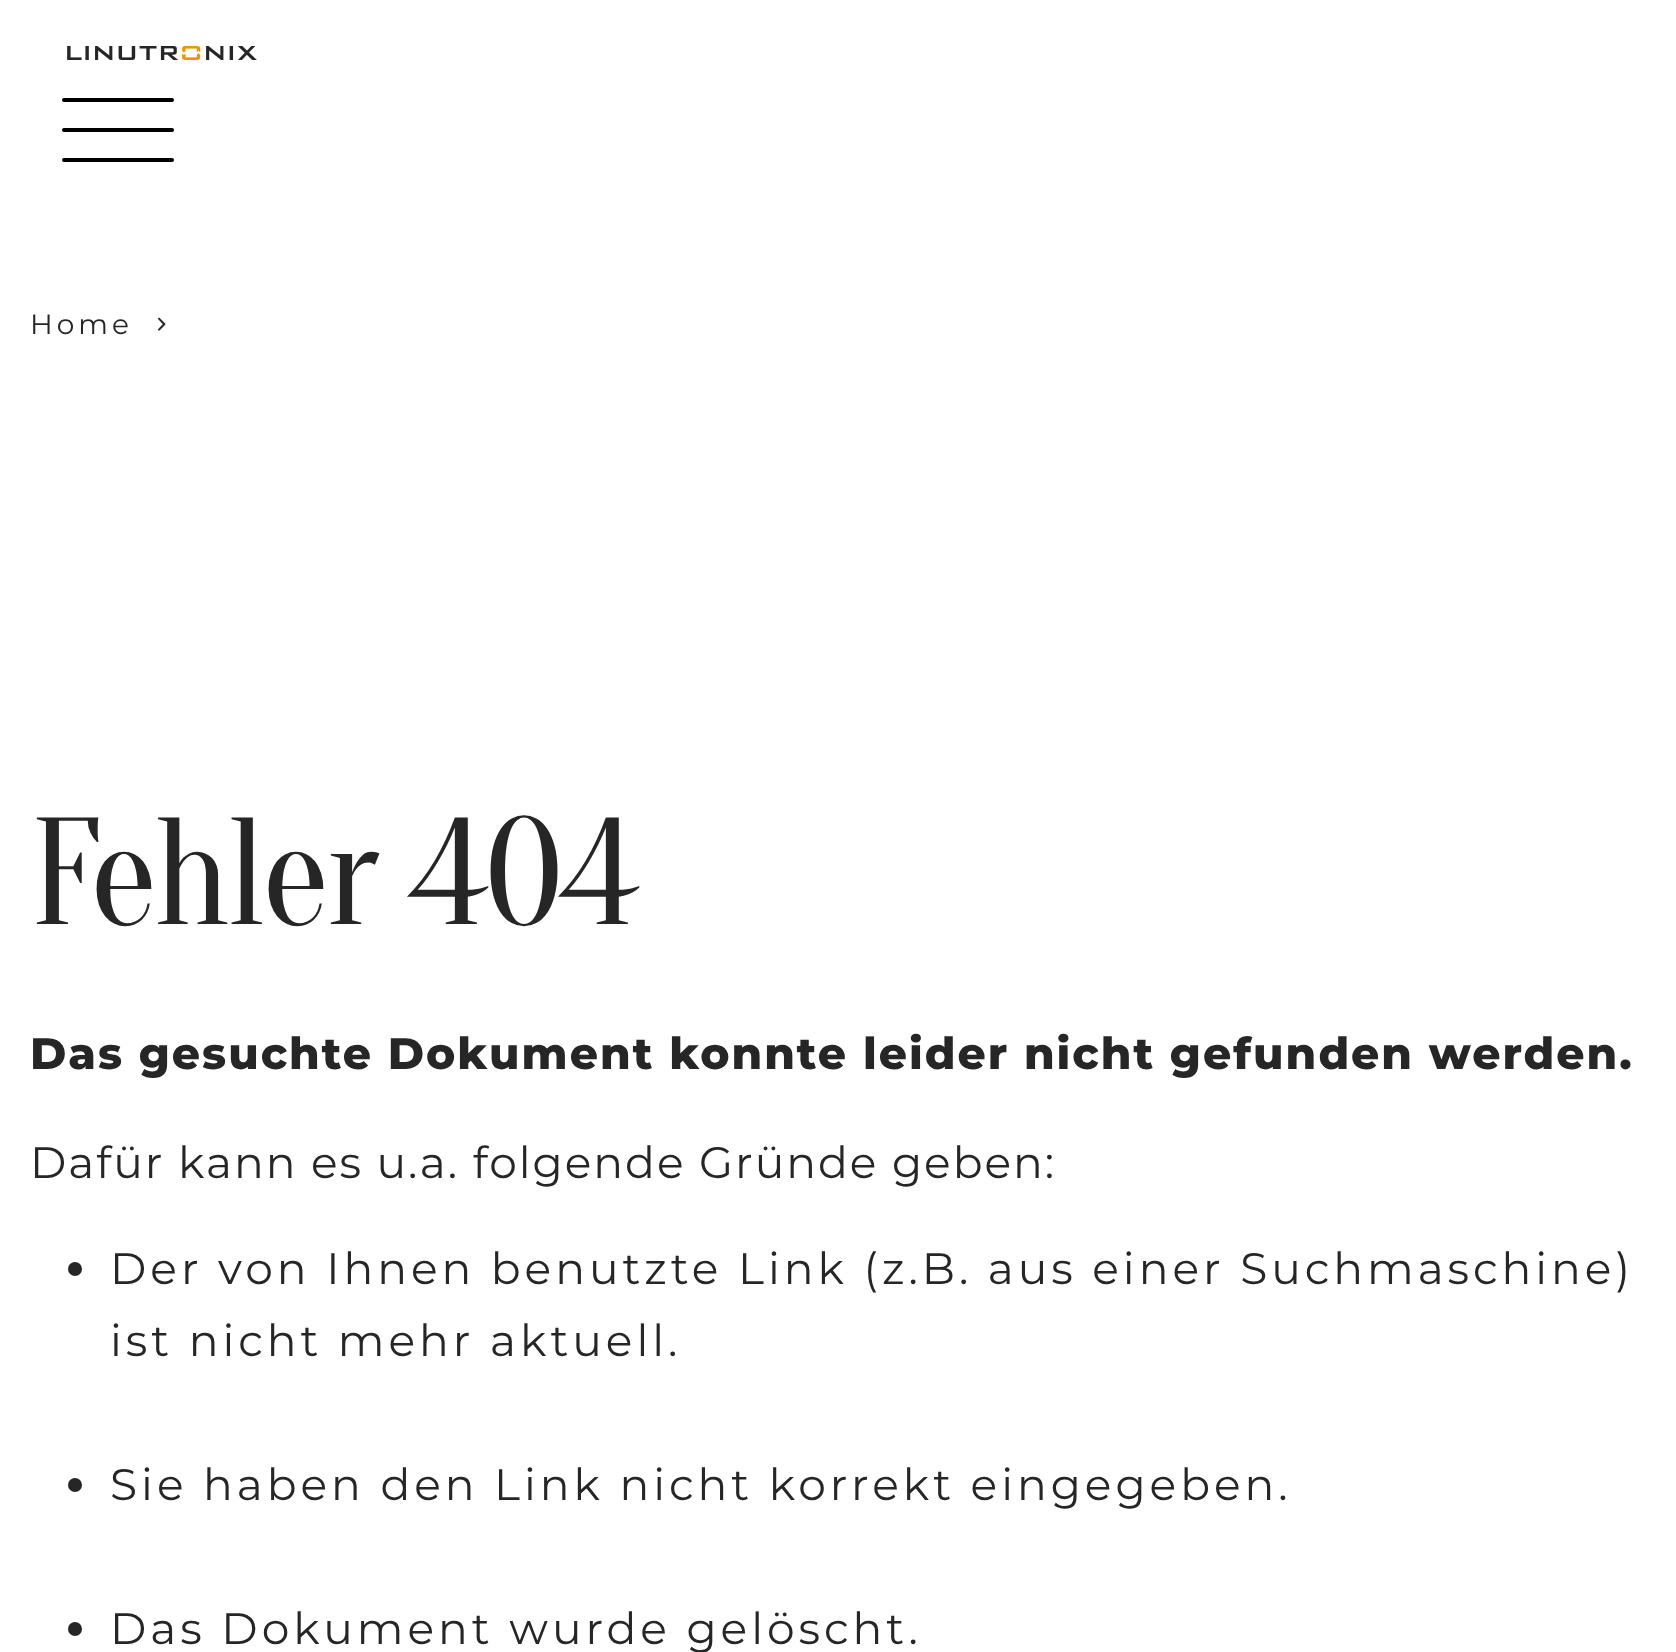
async function draw(canvas) {
  canvas.width = 1676
  canvas.height = 1652
  const ctx = canvas.getContext('2d')
  ctx.miterLimit = 4
  ctx.fontKerning = 'normal'
  async function loadImage(src) {
    const img = new Image()
    img.src = src
    await img.decode()
    return img
  }

  ctx.fillStyle = '#fff'
  ctx.fillRect(0, 0, 1676, 1652)
  ctx.drawImage(await loadImage('image0.png'), 67, 46, 190, 14)
  ctx.fillStyle = '#000'
  ctx.beginPath()
  ctx.roundRect(62, 98, 112, 4, 2)
  ctx.fill()
  ctx.beginPath()
  ctx.roundRect(62, 128, 112, 4, 2)
  ctx.fill()
  ctx.beginPath()
  ctx.roundRect(62, 158, 112, 4, 2)
  ctx.fill()
  ctx.letterSpacing = '4px'
  ctx.font = '100 28px "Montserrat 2"'
  ctx.fillStyle = '#262626'
  ctx.fillText('Home', 30, 334)
  ctx.drawImage(await loadImage('image1.png'), 158, 317, 8, 14)
  ctx.letterSpacing = '-4px'
  ctx.font = '152px Oranienbaum'
  ctx.fillText('Fehler 404', 30, 924)
  ctx.letterSpacing = '2px'
  ctx.font = '100 44px Montserrat'
  ctx.fillText('Das gesuchte Dokument konnte leider nicht gefunden werden.', 30, 1069)
  ctx.font = '100 44px "Montserrat 2"'
  ctx.fillText('Dafür kann es u.a. folgende Gründe geben:', 30, 1178)
  ctx.beginPath()
  ctx.arc(75, 1269, 7, 0, 2 * Math.PI)
  ctx.fill()
  ctx.letterSpacing = '4px'
  ctx.fillText('Der von Ihnen benutzte Link (z.B. aus einer Suchmaschine)', 110, 1284)
  ctx.fillText('ist nicht mehr aktuell.', 110, 1356)
  ctx.beginPath()
  ctx.arc(75, 1485, 7, 0, 2 * Math.PI)
  ctx.fill()
  ctx.fillText('Sie haben den Link nicht korrekt eingegeben.', 110, 1500)
  ctx.beginPath()
  ctx.arc(75, 1629, 7, 0, 2 * Math.PI)
  ctx.fill()
  ctx.fillText('Das Dokument wurde gelöscht.', 110, 1644)
}

draw(document.querySelector('canvas'))
